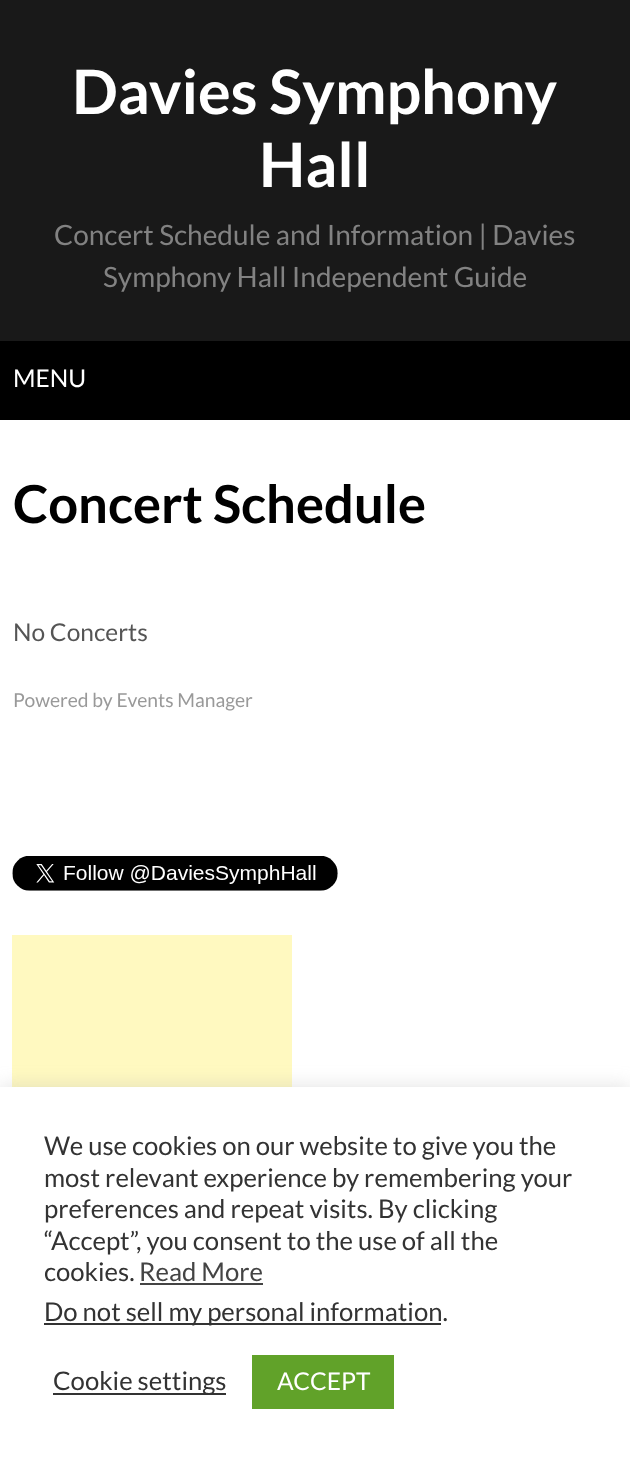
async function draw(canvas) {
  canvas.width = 630
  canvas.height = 1460
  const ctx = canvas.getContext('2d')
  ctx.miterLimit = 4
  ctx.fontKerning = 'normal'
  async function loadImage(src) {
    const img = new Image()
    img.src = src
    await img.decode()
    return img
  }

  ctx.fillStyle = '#fff'
  ctx.fillRect(0, 0, 630, 1460)
  ctx.fillStyle = '#191919'
  ctx.fillRect(0, 0, 630, 341)
  ctx.font = 'bold 61.25px Lato'
  ctx.fillStyle = '#fff'
  ctx.fillText('Davies Symphony', 72, 114)
  ctx.fillText('Hall', 259, 187)
  ctx.font = '28px Lato'
  ctx.fillStyle = '#828282'
  ctx.fillText('Concert Schedule and Information | Davies', 54, 245)
  ctx.fillText('Symphony Hall Independent Guide', 103, 287)
  ctx.fillStyle = '#000'
  ctx.fillRect(0, 341, 630, 79)
  ctx.font = '24.5px Lato'
  ctx.fillStyle = '#fff'
  ctx.fillText('MENU', 13, 387)
  ctx.font = 'bold 52.5px Lato'
  ctx.fillStyle = '#000'
  ctx.fillText('Concert Schedule', 13, 523)
  ctx.font = '24.5px Lato'
  ctx.fillStyle = '#555'
  ctx.fillText('No Concerts', 13, 641)
  ctx.font = '19.25px Lato'
  ctx.fillStyle = '#999'
  ctx.fillText('Powered by Events Manager', 13, 707)
  ctx.drawImage(await loadImage('image0.png'), 12, 856, 326, 35)
  ctx.fillStyle = '#fff9c0'
  ctx.fillRect(12, 935, 280, 152)
  ctx.fillStyle = '#acabab4d'
  ctx.filter = 'blur(9px)'
  ctx.beginPath()
  ctx.rect(0, 1085, 630, 375)
  ctx.fill()
  ctx.filter = 'none'
  ctx.fillStyle = '#fff'
  ctx.fillRect(0, 1087, 630, 373)
  ctx.font = '25.7px Lato'
  ctx.fillStyle = '#333'
  ctx.fillText('We use cookies on our website to give you the', 44, 1155)
  ctx.fillText('most relevant experience by remembering your', 44, 1187)
  ctx.fillText('preferences and repeat visits. By clicking', 44, 1218)
  ctx.fillText('“Accept”, you consent to the use of all the', 44, 1250)
  ctx.fillText('cookies.', 44, 1281)
  ctx.fillStyle = '#444'
  ctx.fillText('Read More', 139, 1281)
  ctx.fillRect(140, 1283, 123, 2)
  ctx.fillStyle = '#333'
  ctx.fillRect(44, 1323, 397, 2)
  ctx.fillText('Do not sell my personal information.', 44, 1321)
  ctx.fillRect(53, 1393, 173, 2)
  ctx.fillText('Cookie settings', 53, 1390)
  ctx.fillStyle = '#61a229'
  ctx.fillRect(252, 1355, 142, 54)
  ctx.font = '24.5px Lato'
  ctx.fillStyle = '#fff'
  ctx.fillText('ACCEPT', 277, 1390)
}

draw(document.querySelector('canvas'))
